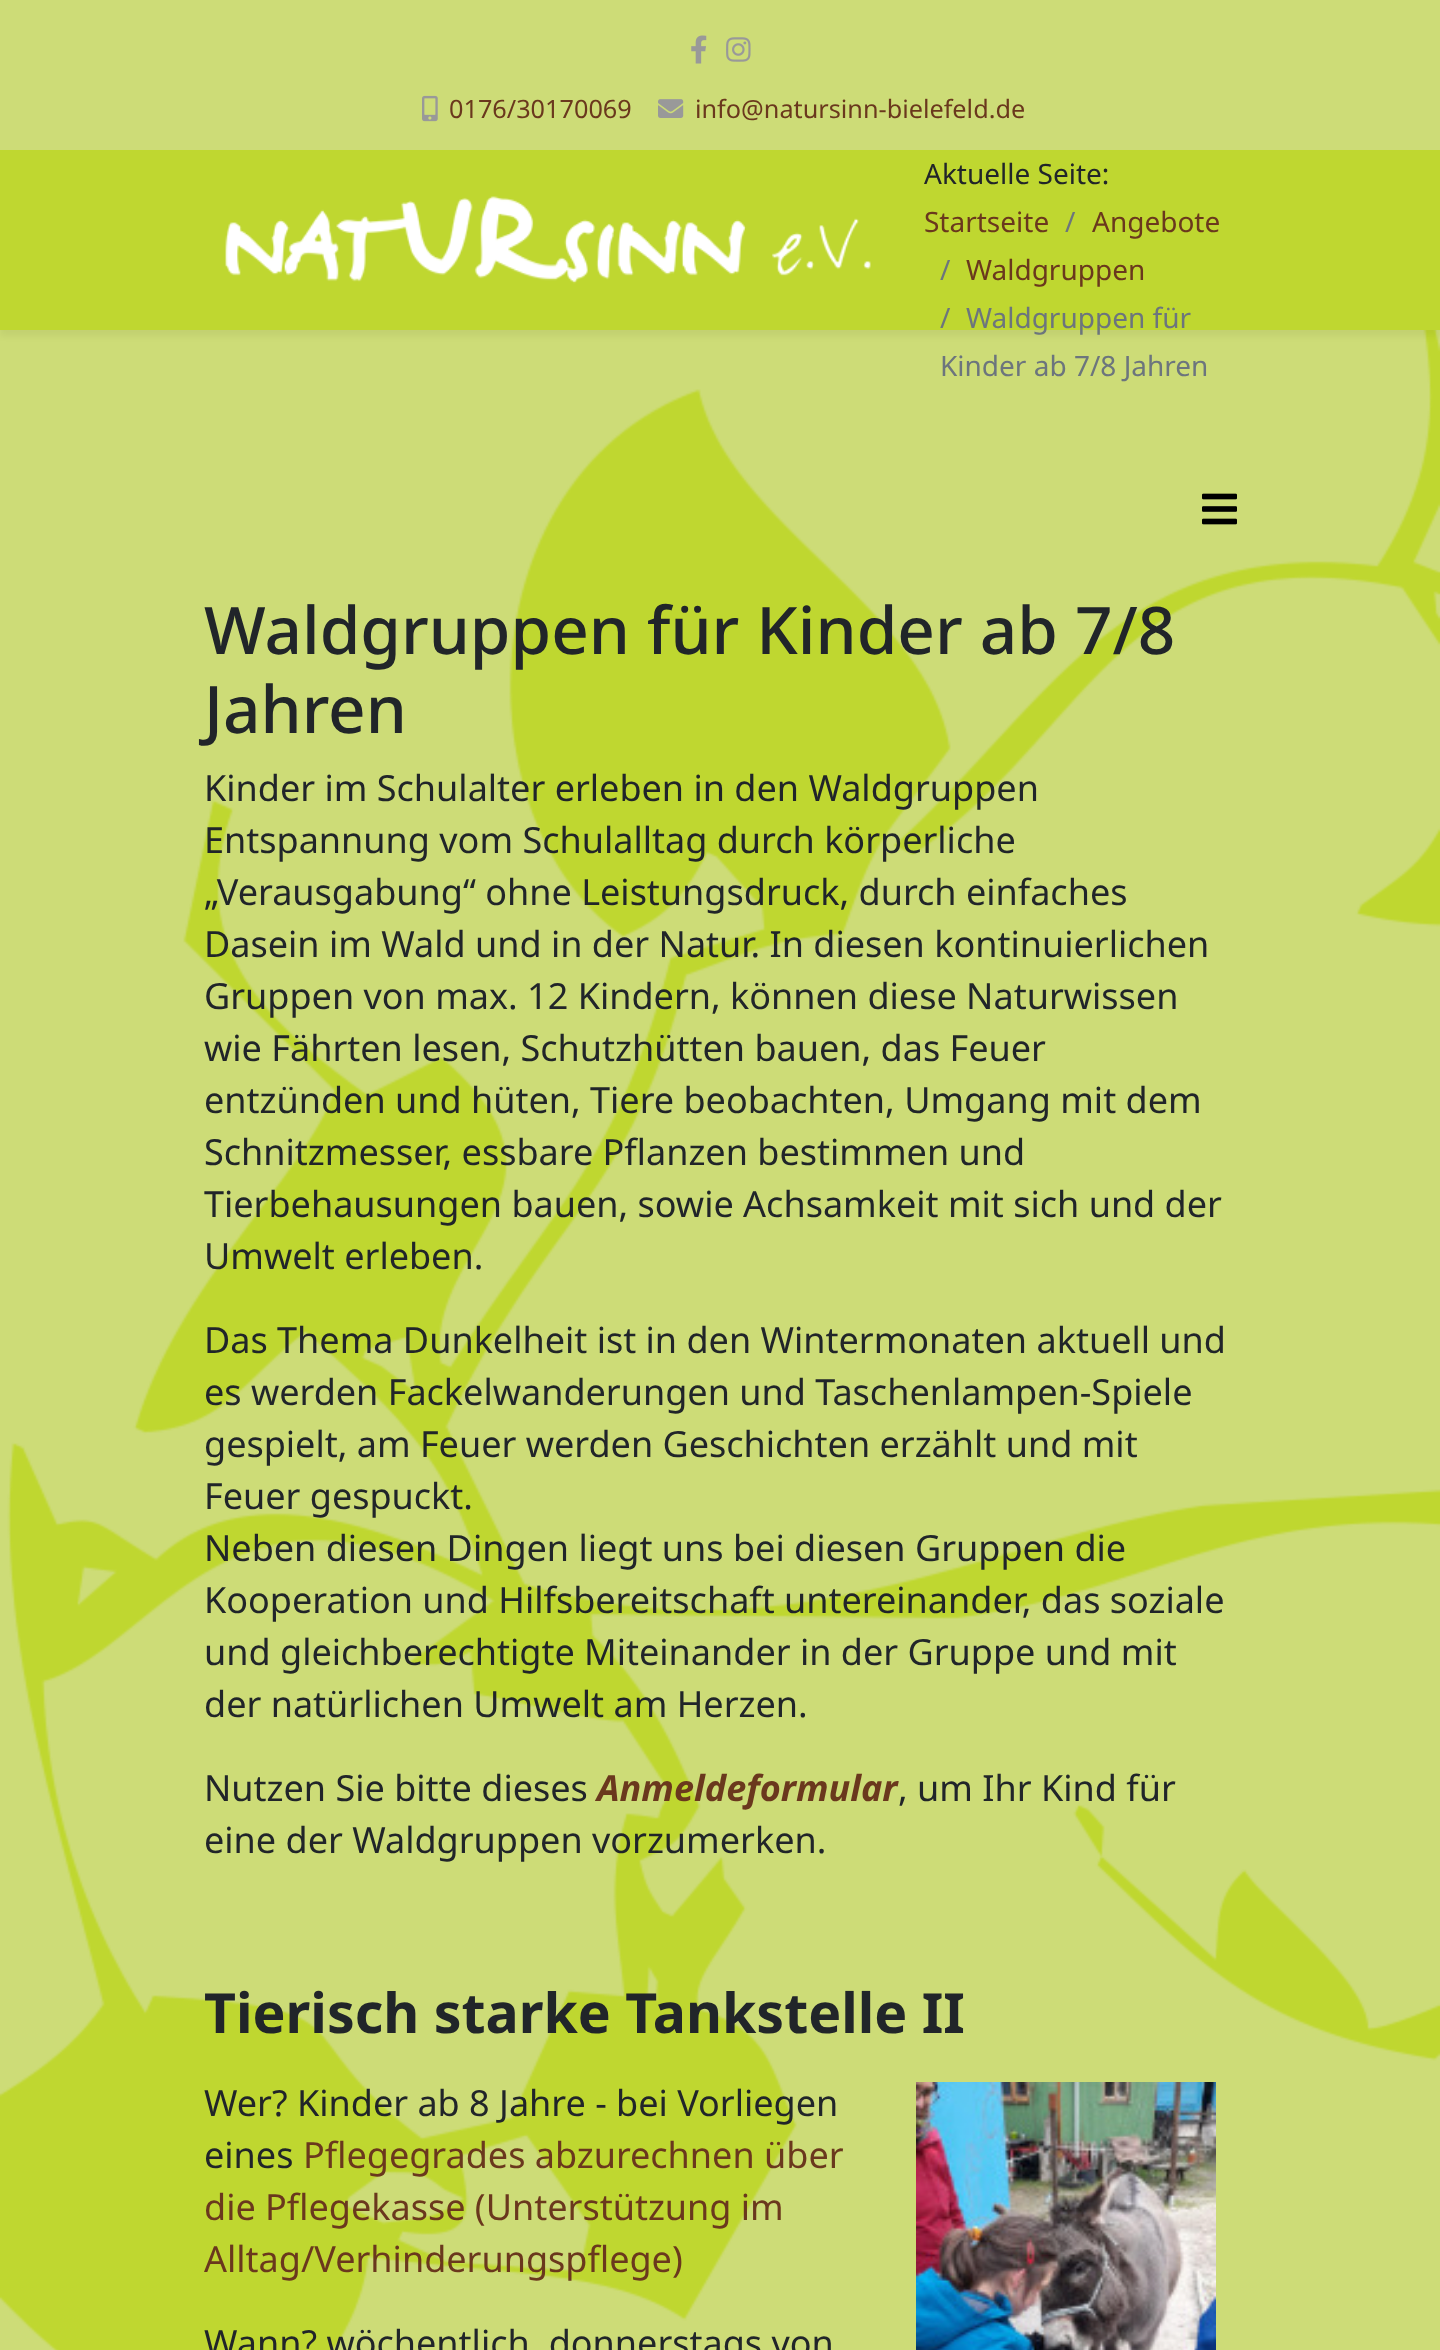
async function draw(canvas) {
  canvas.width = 1440
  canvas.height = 2350
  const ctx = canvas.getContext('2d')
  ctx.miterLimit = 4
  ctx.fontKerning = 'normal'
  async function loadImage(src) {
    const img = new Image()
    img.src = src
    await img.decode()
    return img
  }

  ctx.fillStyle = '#cddc77'
  ctx.fillRect(0, 0, 1440, 2350)
  ctx.drawImage(await loadImage('image0.png'), 0, 330, 1440, 2020)
  ctx.drawImage(await loadImage('image1.png'), 691, 35, 16, 29)
  ctx.drawImage(await loadImage('image2.png'), 726, 37, 25, 25)
  ctx.drawImage(await loadImage('image3.png'), 422, 95, 16, 27)
  ctx.font = '25.25px Noto Sans'
  ctx.fillStyle = '#6a381d'
  ctx.fillText('0176/30170069', 449, 118)
  ctx.drawImage(await loadImage('image4.png'), 658, 99, 26, 19)
  ctx.fillText('info@natursinn-bielefeld.de', 695, 118)
  ctx.fillStyle = '#0000000d'
  ctx.filter = 'blur(3px)'
  ctx.beginPath()
  ctx.rect(0, 156, 1440, 180)
  ctx.fill()
  ctx.filter = 'none'
  ctx.fillStyle = '#bfd730'
  ctx.fillRect(0, 150, 1440, 180)
  ctx.drawImage(await loadImage('image5.png'), 225, 196, 646, 88)
  ctx.font = '28px Noto Sans'
  ctx.fillStyle = '#212529'
  ctx.fillText('Aktuelle Seite:', 924, 184)
  ctx.fillStyle = '#6a381d'
  ctx.fillText('Startseite', 924, 232)
  ctx.fillStyle = '#6c757d'
  ctx.fillText('/', 1065, 232)
  ctx.fillStyle = '#6a381d'
  ctx.fillText('Angebote', 1092, 232)
  ctx.fillStyle = '#6c757d'
  ctx.fillText('/', 940, 280)
  ctx.fillStyle = '#6a381d'
  ctx.fillText('Waldgruppen', 966, 280)
  ctx.fillStyle = '#6c757d'
  ctx.fillText('/', 940, 328)
  ctx.fillText('Waldgruppen für', 966, 328)
  ctx.fillText('Kinder ab 7/8 Jahren', 940, 376)
  ctx.drawImage(await loadImage('image6.png'), 1202, 493, 35, 32)
  ctx.font = '500 65.6px Noto Sans'
  ctx.fillStyle = '#212529'
  ctx.fillText('Waldgruppen für Kinder ab 7/8', 204, 654)
  ctx.fillText('Jahren', 204, 733)
  ctx.font = '36px Noto Sans'
  ctx.fillText('Kinder im Schulalter erleben in den Waldgruppen', 204, 801)
  ctx.fillText('Entspannung vom Schulalltag durch körperliche', 204, 853)
  ctx.fillText('„Verausgabung“ ohne Leistungsdruck, durch einfaches', 204, 905)
  ctx.fillText('Dasein im Wald und in der Natur. In diesen kontinuierlichen', 204, 957)
  ctx.fillText('Gruppen von max. 12 Kindern, können diese Naturwissen', 204, 1009)
  ctx.fillText('wie Fährten lesen, Schutzhütten bauen, das Feuer', 204, 1061)
  ctx.fillText('entzünden und hüten, Tiere beobachten, Umgang mit dem', 204, 1113)
  ctx.fillText('Schnitzmesser, essbare Pflanzen bestimmen und', 204, 1165)
  ctx.fillText('Tierbehausungen bauen, sowie Achsamkeit mit sich und der', 204, 1217)
  ctx.fillText('Umwelt erleben.', 204, 1269)
  ctx.fillText('Das Thema Dunkelheit ist in den Wintermonaten aktuell und', 204, 1353)
  ctx.fillText('es werden Fackelwanderungen und Taschenlampen-Spiele', 204, 1405)
  ctx.fillText('gespielt, am Feuer werden Geschichten erzählt und mit', 204, 1457)
  ctx.fillText('Feuer gespuckt.', 204, 1509)
  ctx.fillText('Neben diesen Dingen liegt uns bei diesen Gruppen die', 204, 1561)
  ctx.fillText('Kooperation und Hilfsbereitschaft untereinander, das soziale', 204, 1613)
  ctx.fillText('und gleichberechtigte Miteinander in der Gruppe und mit', 204, 1665)
  ctx.fillText('der natürlichen Umwelt am Herzen.', 204, 1717)
  ctx.fillText('Nutzen Sie bitte dieses', 204, 1801)
  ctx.font = 'italic bold 36px Noto Sans'
  ctx.fillStyle = '#6a381d'
  ctx.fillText('Anmeldeformular', 597, 1801)
  ctx.font = '36px Noto Sans'
  ctx.fillStyle = '#212529'
  ctx.fillText(', um Ihr Kind für', 898, 1801)
  ctx.fillText('eine der Waldgruppen vorzumerken.', 204, 1853)
  ctx.font = 'bold 55.4px Noto Sans'
  ctx.fillText('Tierisch starke Tankstelle II', 204, 2033)
  ctx.font = '36px Noto Sans'
  ctx.fillText('Wer? Kinder ab 8 Jahre - bei Vorliegen', 204, 2116)
  ctx.fillText('eines', 204, 2168)
  ctx.fillStyle = '#6a381d'
  ctx.fillText('Pflegegrades abzurechnen über', 303, 2168)
  ctx.fillText('die Pflegekasse (Unterstützung im', 204, 2220)
  ctx.fillText('Alltag/Verhinderungspflege)', 204, 2272)
  ctx.drawImage(await loadImage('image7.png'), 916, 2082, 300, 268)
  ctx.fillStyle = '#212529'
  ctx.fillText('Wann? wöchentlich, donnerstags von', 204, 2356)
}

draw(document.querySelector('canvas'))
